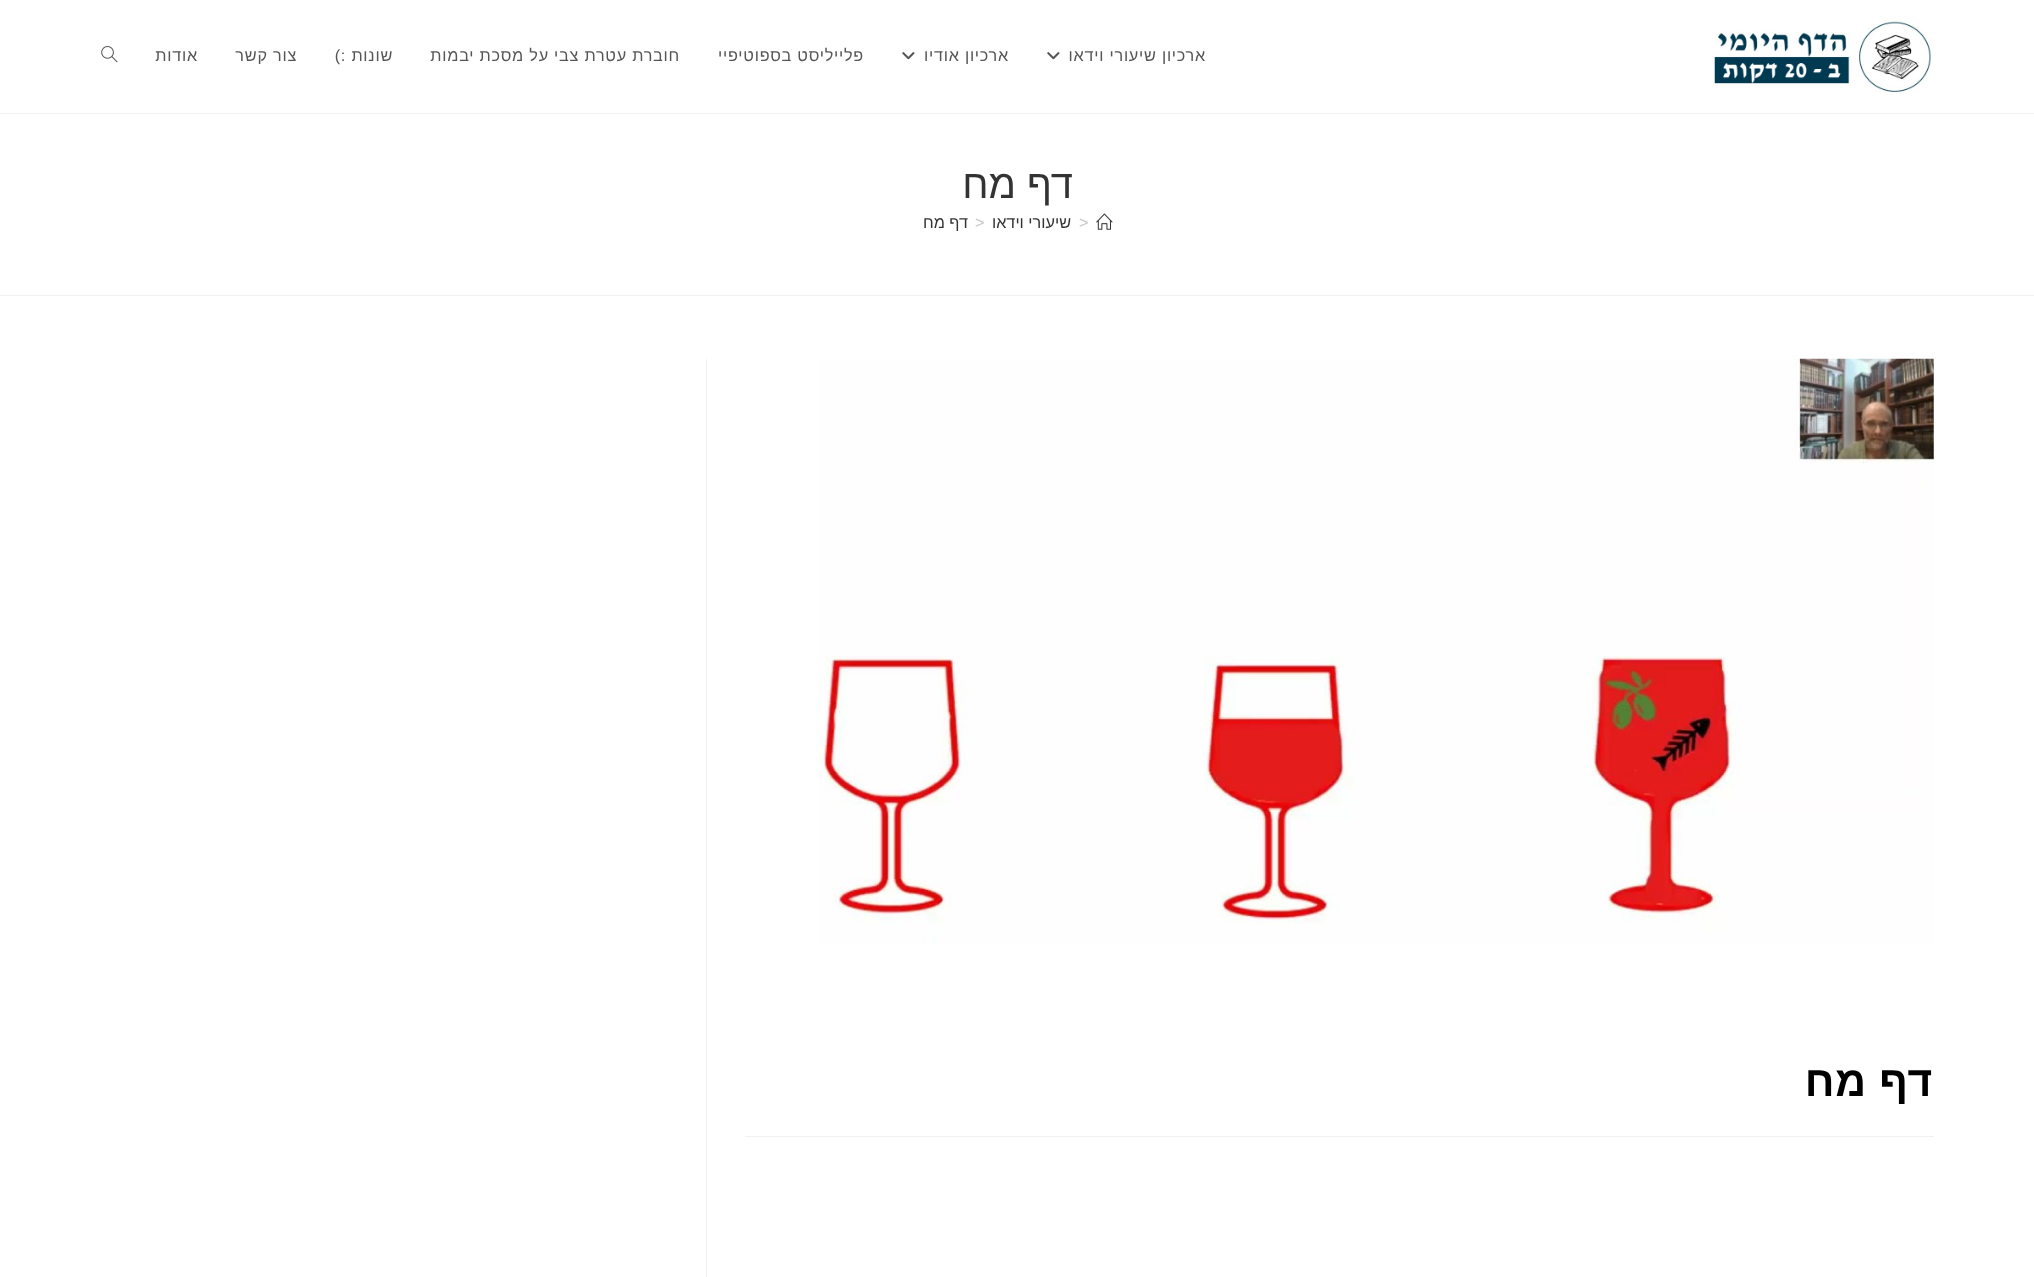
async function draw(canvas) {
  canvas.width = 2034
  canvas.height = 1277
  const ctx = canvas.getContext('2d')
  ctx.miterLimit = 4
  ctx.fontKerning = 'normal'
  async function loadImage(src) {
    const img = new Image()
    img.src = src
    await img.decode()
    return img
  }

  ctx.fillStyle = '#fff'
  ctx.fillRect(0, 0, 2034, 1277)
  ctx.fillStyle = '#f1f1f1'
  ctx.fillRect(0, 113, 2034, 1)
  ctx.drawImage(await loadImage('image0.png'), 1713, 19, 218, 74)
  ctx.letterSpacing = '0.75px'
  ctx.direction = 'rtl'
  ctx.font = '16.25px Liberation Sans'
  ctx.fillStyle = '#555'
  ctx.fillText('ארכיון שיעורי וידאו', 1206, 61)
  ctx.drawImage(await loadImage('image1.png'), 1047, 52, 13, 8)
  ctx.fillText('ארכיון אודיו', 1009, 61)
  ctx.drawImage(await loadImage('image1.png'), 902, 52, 13, 8)
  ctx.fillText('פלייליסט בספוטיפיי', 864, 61)
  ctx.fillText('חוברת עטרת צבי על מסכת יבמות', 680, 61)
  ctx.fillText('שונות :)', 393, 61)
  ctx.fillText('צור קשר', 297, 61)
  ctx.fillText('אודות', 198, 61)
  ctx.drawImage(await loadImage('image2.png'), 101, 46, 17, 17)
  ctx.fillStyle = '#f1f1f1'
  ctx.fillRect(0, 295, 2034, 1)
  ctx.letterSpacing = '0px'
  ctx.font = '40px Liberation Sans'
  ctx.fillStyle = '#333'
  ctx.fillText('דף מח', 1073, 198)
  ctx.drawImage(await loadImage('image3.png'), 1096, 213, 17, 17)
  ctx.direction = 'ltr'
  ctx.font = '16.25px Liberation Sans'
  ctx.fillStyle = '#c6c6c6'
  ctx.fillText('>', 1079, 228)
  ctx.direction = 'rtl'
  ctx.fillStyle = '#333'
  ctx.fillText('שיעורי וידאו', 1071, 228)
  ctx.direction = 'ltr'
  ctx.fillStyle = '#c6c6c6'
  ctx.fillText('>', 975, 228)
  ctx.direction = 'rtl'
  ctx.fillStyle = '#333'
  ctx.fillText('דף מח', 968, 228)
  ctx.fillStyle = '#f1f1f1'
  ctx.fillRect(706, 359, 1, 918)
  ctx.drawImage(await loadImage('image4.png'), 819, 358, 1115, 586)
  ctx.fillRect(745, 1136, 1189, 1)
  ctx.letterSpacing = '0.75px'
  ctx.font = 'bold 42.5px Liberation Sans'
  ctx.fillStyle = '#000'
  ctx.fillText('דף מח', 1933, 1096)
}

draw(document.querySelector('canvas'))
